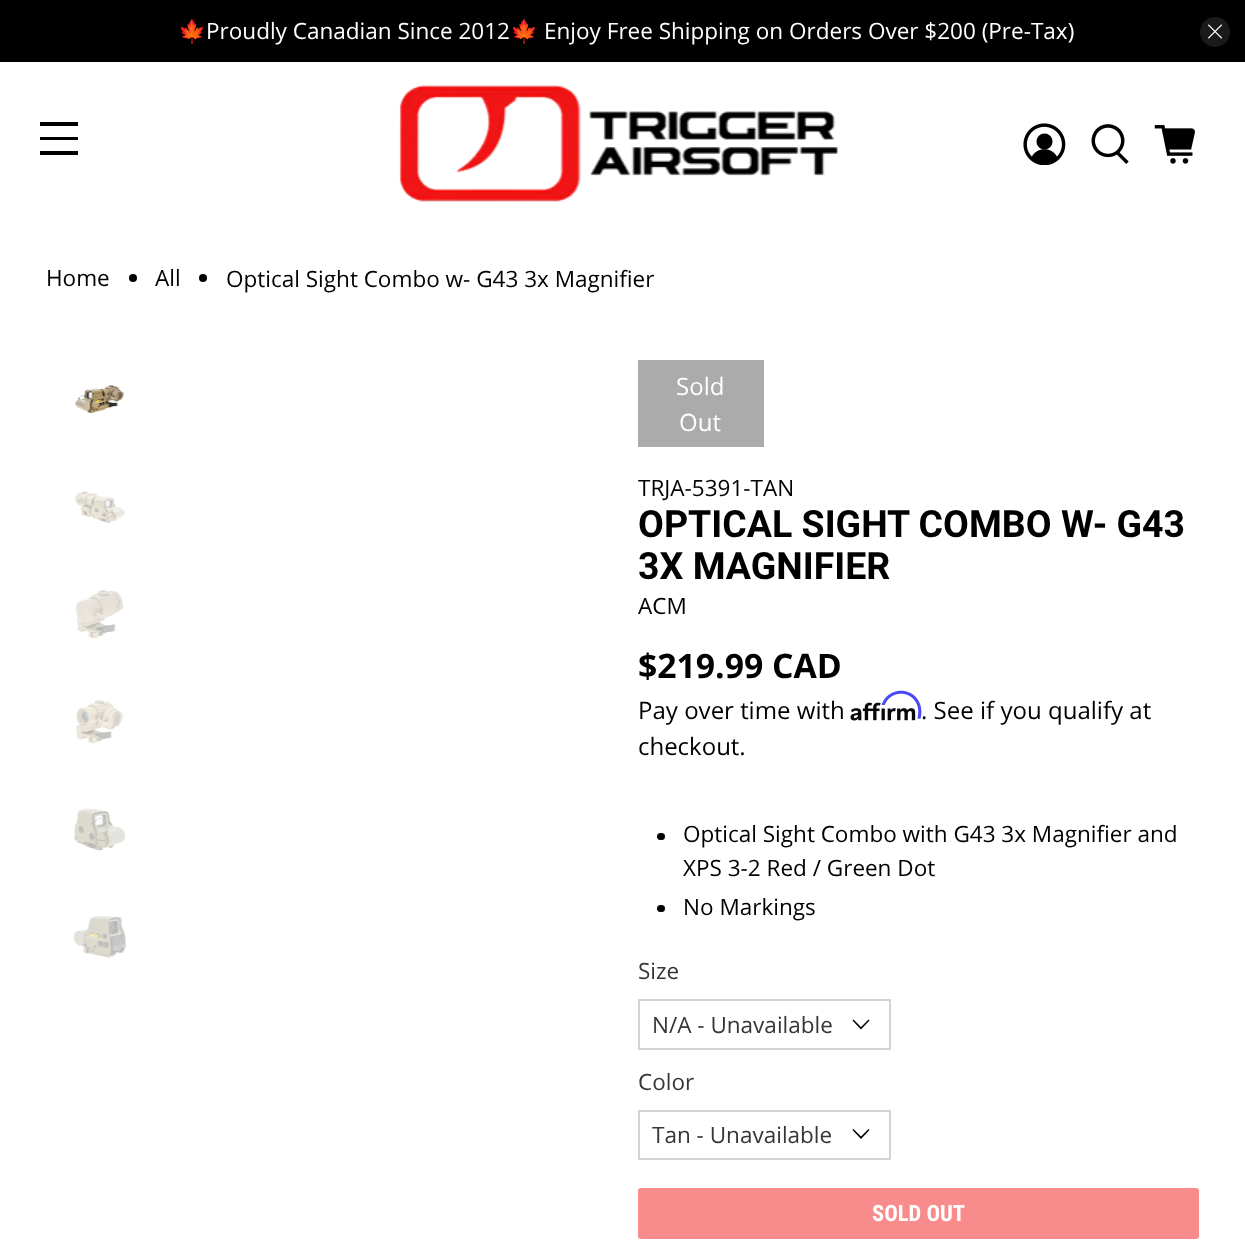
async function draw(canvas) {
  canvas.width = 1245
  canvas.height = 1257
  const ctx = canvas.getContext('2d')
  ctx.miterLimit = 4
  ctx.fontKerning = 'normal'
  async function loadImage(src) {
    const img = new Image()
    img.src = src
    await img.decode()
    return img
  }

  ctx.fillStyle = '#fff'
  ctx.fillRect(0, 0, 1245, 1257)
  ctx.fillStyle = '#000'
  ctx.fillRect(0, 0, 1245, 62)
  ctx.font = '22.5px Noto Color Emoji'
  ctx.fillStyle = '#fff'
  ctx.fillText('🍁', 178, 39)
  ctx.font = '22.5px Open Sans'
  ctx.fillText('Proudly Canadian Since 2012', 206, 39)
  ctx.font = '22.5px Noto Color Emoji'
  ctx.fillText('🍁', 510, 39)
  ctx.font = '22.5px Open Sans'
  ctx.fillText('Enjoy Free Shipping on Orders Over $200 (Pre-Tax)', 544, 39)
  ctx.fillStyle = '#1a1a1a'
  ctx.beginPath()
  ctx.arc(1215, 32, 15, 0, 2 * Math.PI)
  ctx.fill()
  ctx.drawImage(await loadImage('image0.png'), 1208, 24, 15, 15)
  ctx.fillStyle = '#000'
  ctx.fillRect(40, 122, 38, 4)
  ctx.fillRect(40, 137, 38, 3)
  ctx.fillRect(40, 151, 38, 4)
  ctx.drawImage(await loadImage('image1.png'), 399, 85, 440, 117)
  ctx.drawImage(await loadImage('image2.png'), 1023, 123, 43, 42)
  ctx.drawImage(await loadImage('image3.png'), 1091, 124, 38, 40)
  ctx.drawImage(await loadImage('image4.png'), 1154, 125, 41, 39)
  ctx.fillText('Home', 46, 286)
  ctx.beginPath()
  ctx.arc(133, 278, 4, 0, 2 * Math.PI)
  ctx.fill()
  ctx.fillText('All', 155, 286)
  ctx.beginPath()
  ctx.arc(203, 278, 4, 0, 2 * Math.PI)
  ctx.fill()
  ctx.fillText('Optical Sight Combo w- G43 3x Magnifier', 226, 287)
  ctx.drawImage(await loadImage('image5.png'), 75, 385, 50, 28)
  ctx.drawImage(await loadImage('image6.png'), 75, 491, 50, 32)
  ctx.drawImage(await loadImage('image7.png'), 75, 590, 49, 48)
  ctx.drawImage(await loadImage('image8.png'), 76, 700, 48, 44)
  ctx.drawImage(await loadImage('image9.png'), 74, 808, 52, 43)
  ctx.drawImage(await loadImage('image10.png'), 73, 916, 53, 42)
  ctx.fillStyle = '#ababab'
  ctx.fillRect(638, 360, 126, 87)
  ctx.font = '24px Open Sans'
  ctx.fillStyle = '#fff'
  ctx.fillText('Sold', 676, 395)
  ctx.fillText('Out', 679, 431)
  ctx.font = '22.5px Open Sans'
  ctx.fillStyle = '#000'
  ctx.fillText('TRJA-5391-TAN', 638, 496)
  ctx.font = 'bold 37.5px Roboto'
  ctx.fillText('OPTICAL SIGHT COMBO W- G43', 638, 537)
  ctx.fillText('3X MAGNIFIER', 638, 579)
  ctx.font = '22.5px Open Sans'
  ctx.fillText('ACM', 638, 614)
  ctx.font = 'bold 33.75px Open Sans'
  ctx.fillText('$219.99 CAD', 638, 678)
  ctx.font = '24px Open Sans'
  ctx.fillText('Pay over time with', 638, 719)
  ctx.drawImage(await loadImage('image12.png'), 850, 702, 66, 19)
  ctx.drawImage(await loadImage('image11.png'), 881, 690, 41, 29)
  ctx.fillText('. See if you qualify at', 921, 719)
  ctx.fillText('checkout.', 638, 755)
  ctx.beginPath()
  ctx.roundRect(657, 833, 8, 7, 3.5)
  ctx.fill()
  ctx.font = '22.5px Open Sans'
  ctx.fillText('Optical Sight Combo with G43 3x Magnifier and', 683, 842)
  ctx.fillText('XPS 3-2 Red / Green Dot', 683, 876)
  ctx.beginPath()
  ctx.roundRect(657, 905, 8, 7, 3.5)
  ctx.fill()
  ctx.fillText('No Markings', 683, 915)
  ctx.fillStyle = '#363636'
  ctx.fillText('Size', 638, 979)
  ctx.strokeStyle = '#d3d3d3'
  ctx.lineWidth = 2
  ctx.strokeRect(639, 1000, 251, 49)
  ctx.fillText('N/A - Unavailable', 652, 1033)
  ctx.fillStyle = '#000'
  ctx.beginPath()
  ctx.moveTo(861, 1029.5)
  ctx.lineTo(852.5, 1020.5)
  ctx.lineTo(853.5, 1019.5)
  ctx.lineTo(861, 1027)
  ctx.lineTo(868.5, 1019.5)
  ctx.lineTo(869.5, 1020.5)
  ctx.closePath()
  ctx.fill()
  ctx.fillStyle = '#363636'
  ctx.fillText('Color', 638, 1090)
  ctx.strokeRect(639, 1111, 251, 48)
  ctx.fillText('Tan - Unavailable', 652, 1143)
  ctx.fillStyle = '#000'
  ctx.beginPath()
  ctx.moveTo(861, 1139)
  ctx.lineTo(852.5, 1130)
  ctx.lineTo(853.5, 1129)
  ctx.lineTo(861, 1136.5)
  ctx.lineTo(868.5, 1129)
  ctx.lineTo(869.5, 1130)
  ctx.closePath()
  ctx.fill()
  ctx.fillStyle = '#f88b8b'
  ctx.beginPath()
  ctx.roundRect(638, 1188, 561, 51, 3)
  ctx.fill()
  ctx.font = 'bold 22.5px Roboto Condensed'
  ctx.fillStyle = '#fff'
  ctx.fillText('SOLD OUT', 872, 1221)
}

draw(document.querySelector('canvas'))
